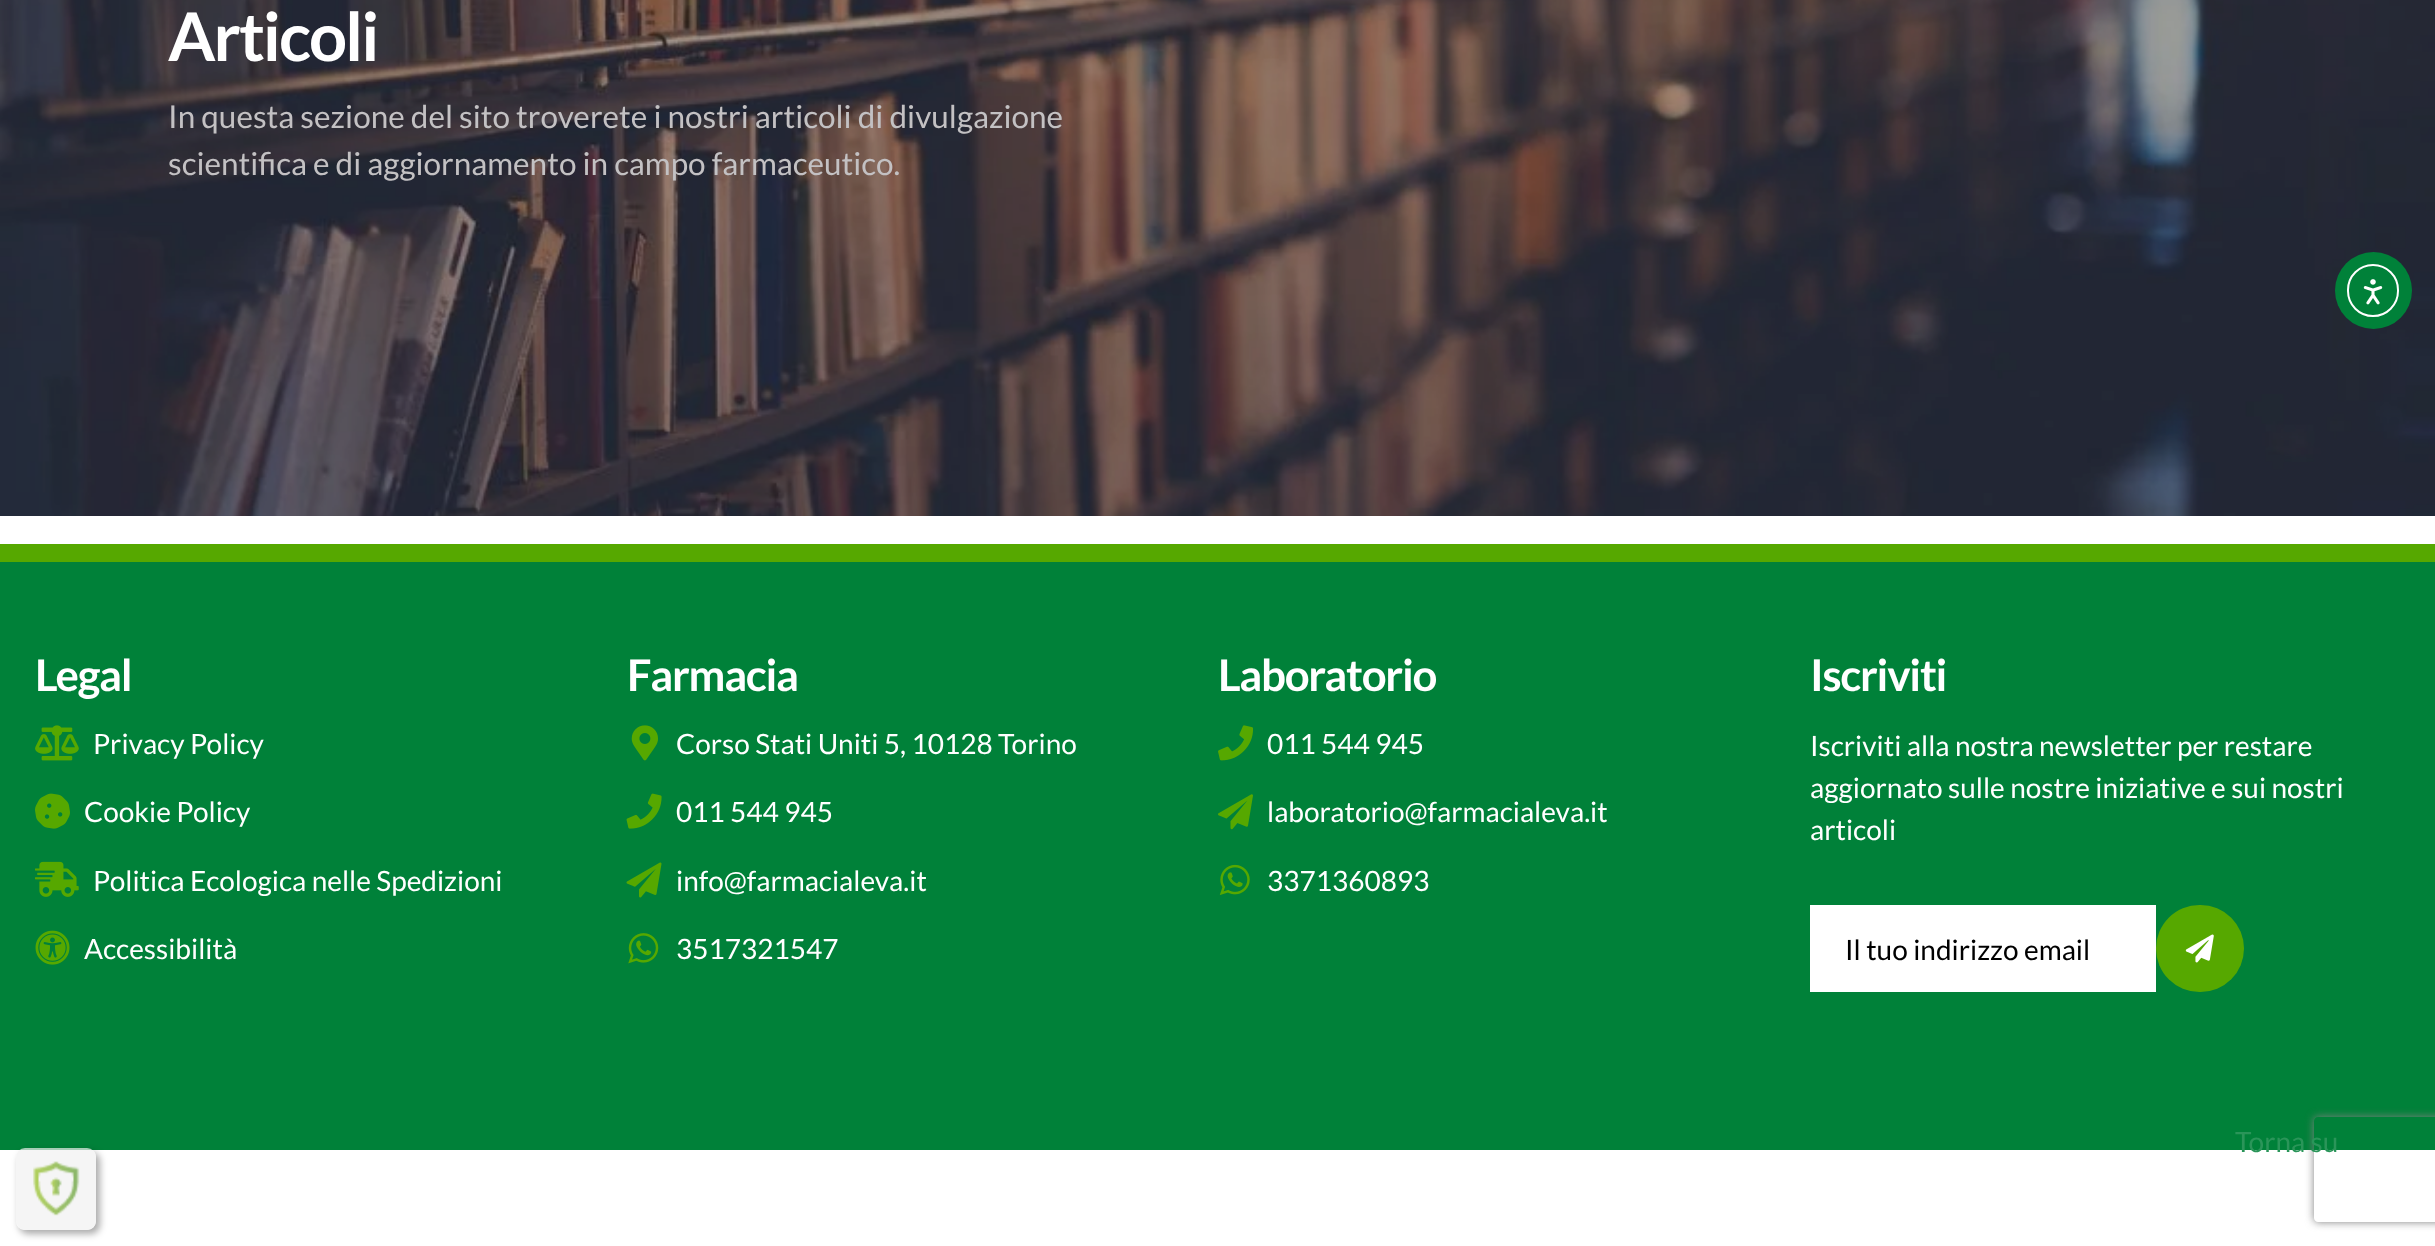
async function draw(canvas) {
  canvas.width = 2435
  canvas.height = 1246
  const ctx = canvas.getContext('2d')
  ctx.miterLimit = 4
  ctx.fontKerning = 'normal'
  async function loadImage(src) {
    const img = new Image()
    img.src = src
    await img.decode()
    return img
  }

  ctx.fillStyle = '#fff'
  ctx.fillRect(0, 0, 2435, 1246)
  ctx.drawImage(await loadImage('image0.png'), 0, 0, 2435, 516)
  ctx.letterSpacing = '-2px'
  ctx.font = 'bold 67px Lato'
  ctx.fillText('Articoli', 168, 61)
  ctx.letterSpacing = '0px'
  ctx.font = '31.5px Lato'
  ctx.fillStyle = '#c3c1c3'
  ctx.fillText('In questa sezione del sito troverete i nostri articoli di divulgazione', 168, 128)
  ctx.fillText('scientifica e di aggiornamento in campo farmaceutico.', 168, 175)
  ctx.fillStyle = '#56a800'
  ctx.fillRect(0, 544, 2435, 18)
  ctx.fillStyle = '#008139'
  ctx.fillRect(0, 562, 2435, 588)
  ctx.letterSpacing = '-1.25px'
  ctx.font = 'bold 43.75px Lato'
  ctx.fillStyle = '#fff'
  ctx.fillText('Legal', 35, 691)
  ctx.drawImage(await loadImage('image1.png'), 35, 725, 44, 36)
  ctx.letterSpacing = '0px'
  ctx.font = '28px Lato'
  ctx.fillText('Privacy Policy', 93, 754)
  ctx.drawImage(await loadImage('image2.png'), 35, 793, 35, 36)
  ctx.fillText('Cookie Policy', 84, 822)
  ctx.drawImage(await loadImage('image3.png'), 35, 861, 44, 36)
  ctx.fillText('Politica Ecologica nelle Spedizioni', 93, 891)
  ctx.drawImage(await loadImage('image4.png'), 35, 930, 35, 35)
  ctx.fillText('Accessibilità', 84, 959)
  ctx.letterSpacing = '-1.25px'
  ctx.font = 'bold 43.75px Lato'
  ctx.fillText('Farmacia', 627, 691)
  ctx.drawImage(await loadImage('image5.png'), 631, 725, 27, 36)
  ctx.letterSpacing = '0px'
  ctx.font = '28px Lato'
  ctx.fillText('Corso Stati Uniti 5, 10128 Torino', 676, 754)
  ctx.drawImage(await loadImage('image6.png'), 626, 793, 36, 36)
  ctx.fillText('011 544 945', 676, 822)
  ctx.drawImage(await loadImage('image7.png'), 626, 862, 36, 36)
  ctx.fillText('info@farmacialeva.it', 676, 891)
  ctx.drawImage(await loadImage('image8.png'), 628, 933, 31, 31)
  ctx.fillText('3517321547', 676, 959)
  ctx.letterSpacing = '-1.25px'
  ctx.font = 'bold 43.75px Lato'
  ctx.fillText('Laboratorio', 1218, 691)
  ctx.drawImage(await loadImage('image9.png'), 1218, 725, 35, 36)
  ctx.letterSpacing = '0px'
  ctx.font = '28px Lato'
  ctx.fillText('011 544 945', 1267, 754)
  ctx.drawImage(await loadImage('image10.png'), 1218, 794, 35, 36)
  ctx.fillText('laboratorio@farmacialeva.it', 1267, 822)
  ctx.drawImage(await loadImage('image11.png'), 1219, 864, 31, 31)
  ctx.fillText('3371360893', 1267, 891)
  ctx.letterSpacing = '-1.25px'
  ctx.font = 'bold 43.75px Lato'
  ctx.fillText('Iscriviti', 1810, 691)
  ctx.letterSpacing = '0px'
  ctx.font = '28px Lato'
  ctx.fillText('Iscriviti alla nostra newsletter per restare', 1810, 756)
  ctx.fillText('aggiornato sulle nostre iniziative e sui nostri', 1810, 798)
  ctx.fillText('articoli', 1810, 840)
  ctx.fillRect(1810, 905, 346, 87)
  ctx.fillStyle = '#000'
  ctx.fillText('Il tuo indirizzo email', 1845, 960)
  ctx.fillStyle = '#56a800'
  ctx.beginPath()
  ctx.roundRect(2156, 905, 88, 87, 43.5)
  ctx.fill()
  ctx.drawImage(await loadImage('image12.png'), 2185, 934, 29, 29)
  ctx.fillStyle = '#008139'
  ctx.beginPath()
  ctx.arc(2373.5, 290.5, 38.5, 0, 2 * Math.PI)
  ctx.fill()
  ctx.beginPath()
  ctx.roundRect(2348, 265, 50, 51, 25)
  ctx.strokeStyle = '#fff'
  ctx.lineWidth = 2
  ctx.stroke()
  ctx.drawImage(await loadImage('image13.png'), 2363, 279, 20, 26)
  ctx.save()
  ctx.beginPath()
  ctx.moveTo(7, 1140)
  ctx.lineTo(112, 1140)
  ctx.lineTo(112, 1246)
  ctx.lineTo(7, 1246)
  ctx.closePath()
  ctx.moveTo(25, 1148)
  ctx.lineTo(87, 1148)
  ctx.bezierCurveTo(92, 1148, 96, 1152, 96, 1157)
  ctx.lineTo(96, 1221)
  ctx.bezierCurveTo(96, 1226, 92, 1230, 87, 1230)
  ctx.lineTo(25, 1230)
  ctx.bezierCurveTo(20, 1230, 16, 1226, 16, 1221)
  ctx.lineTo(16, 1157)
  ctx.bezierCurveTo(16, 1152, 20, 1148, 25, 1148)
  ctx.closePath()
  ctx.clip('evenodd')
  ctx.fillStyle = '#00000054'
  ctx.filter = 'blur(3.5px)'
  ctx.beginPath()
  ctx.roundRect(19, 1152, 81, 82, 9)
  ctx.fill()
  ctx.filter = 'none'
  ctx.restore()
  ctx.fillStyle = '#f1f1f1b0'
  ctx.beginPath()
  ctx.roundRect(16, 1148, 80, 82, 9)
  ctx.fill()
  ctx.drawImage(await loadImage('image14.png'), 33, 1161, 47, 55)
  ctx.save()
  ctx.beginPath()
  ctx.moveTo(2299, 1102)
  ctx.lineTo(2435, 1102)
  ctx.lineTo(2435, 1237)
  ctx.lineTo(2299, 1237)
  ctx.closePath()
  ctx.moveTo(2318, 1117)
  ctx.lineTo(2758, 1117)
  ctx.bezierCurveTo(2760, 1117, 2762, 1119, 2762, 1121)
  ctx.lineTo(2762, 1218)
  ctx.bezierCurveTo(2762, 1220, 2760, 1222, 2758, 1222)
  ctx.lineTo(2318, 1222)
  ctx.bezierCurveTo(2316, 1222, 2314, 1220, 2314, 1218)
  ctx.lineTo(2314, 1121)
  ctx.bezierCurveTo(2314, 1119, 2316, 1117, 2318, 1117)
  ctx.closePath()
  ctx.clip('evenodd')
  ctx.fillStyle = '#808080'
  ctx.filter = 'blur(4.5px)'
  ctx.beginPath()
  ctx.roundRect(2314, 1117, 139, 105, 4)
  ctx.fill()
  ctx.filter = 'none'
  ctx.restore()
  ctx.fillStyle = '#2a9559'
  ctx.fillText('Torna su', 2235, 1152)
}

draw(document.querySelector('canvas'))
